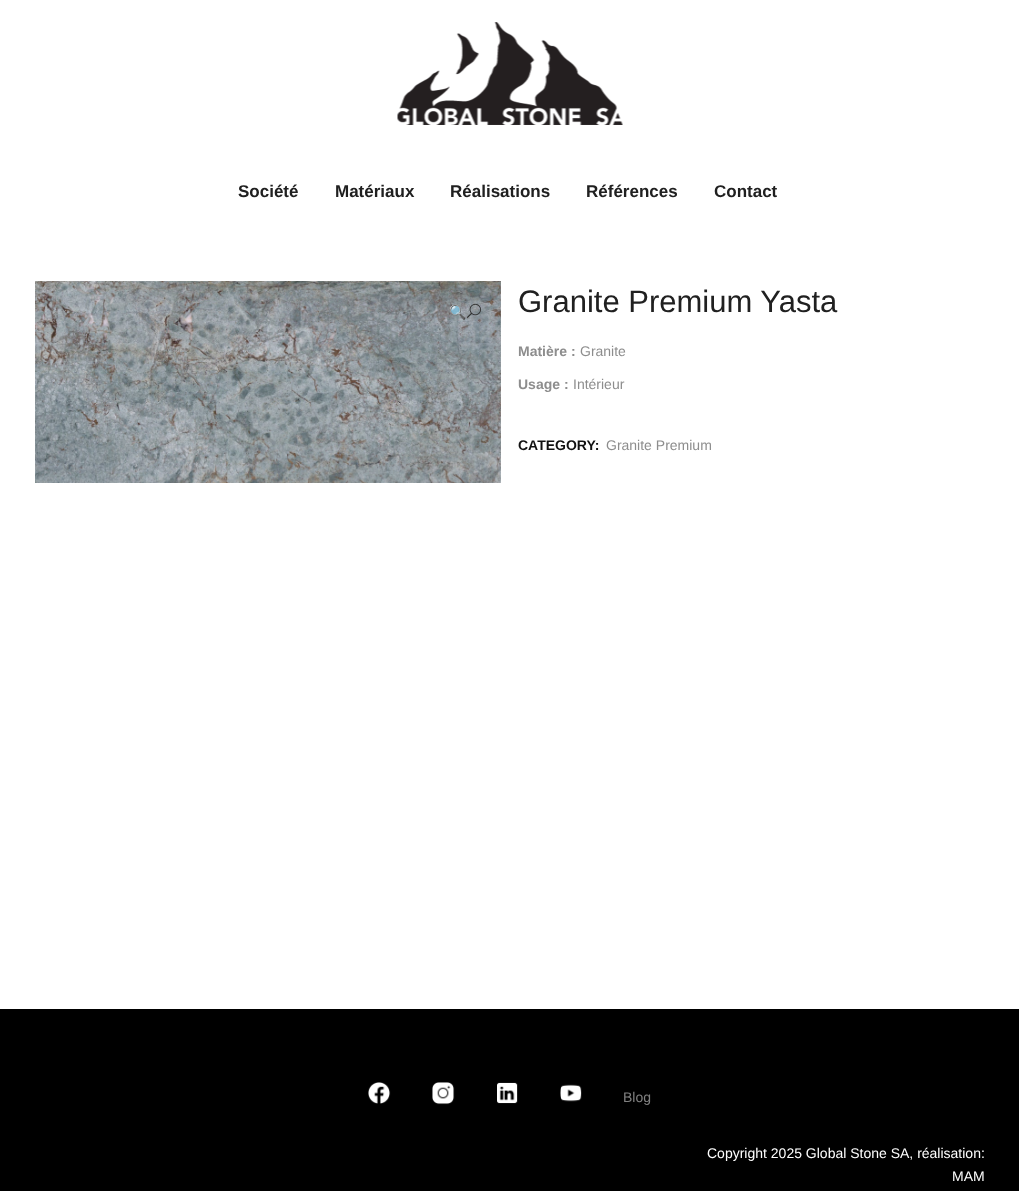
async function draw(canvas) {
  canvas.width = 1019
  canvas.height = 1191
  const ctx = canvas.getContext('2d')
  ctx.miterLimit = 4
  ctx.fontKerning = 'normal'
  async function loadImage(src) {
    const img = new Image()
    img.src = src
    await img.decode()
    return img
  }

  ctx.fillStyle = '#fff'
  ctx.fillRect(0, 0, 1019, 1191)
  ctx.drawImage(await loadImage('image0.png'), 397, 22, 226, 103)
  ctx.font = 'bold 17px Liberation Sans'
  ctx.fillStyle = '#202020'
  ctx.fillText('Société', 238, 197)
  ctx.fillText('Matériaux', 335, 197)
  ctx.fillText('Réalisations', 450, 197)
  ctx.fillText('Références', 586, 197)
  ctx.fillText('Contact', 714, 197)
  ctx.drawImage(await loadImage('image1.png'), 35, 281, 466, 202)
  ctx.font = '14px Noto Color Emoji'
  ctx.fillStyle = '#303030'
  ctx.fillText('🔍', 449, 317)
  ctx.drawImage(await loadImage('image2.png'), 467, 303, 14, 15)
  ctx.font = '31px Liberation Sans'
  ctx.fillStyle = '#202020'
  ctx.fillText('Granite Premium Yasta', 518, 312)
  ctx.font = 'bold 14px Liberation Sans'
  ctx.fillStyle = '#8d8d8d'
  ctx.fillText('Matière :', 518, 356)
  ctx.font = '14px Liberation Sans'
  ctx.fillText('Granite', 580, 356)
  ctx.font = 'bold 14px Liberation Sans'
  ctx.fillText('Usage :', 518, 389)
  ctx.font = '14px Liberation Sans'
  ctx.fillText('Intérieur', 573, 389)
  ctx.font = 'bold 14px Liberation Sans'
  ctx.fillStyle = '#111'
  ctx.fillText('CATEGORY:', 518, 450)
  ctx.font = '14px Liberation Sans'
  ctx.fillStyle = '#8d8d8d'
  ctx.fillText('Granite Premium', 606, 450)
  ctx.fillStyle = '#000'
  ctx.fillRect(0, 1009, 1019, 182)
  ctx.drawImage(await loadImage('image3.png'), 368, 1082, 23, 22)
  ctx.drawImage(await loadImage('image4.png'), 432, 1082, 23, 23)
  ctx.drawImage(await loadImage('image5.png'), 497, 1082, 21, 22)
  ctx.drawImage(await loadImage('image6.png'), 560, 1084, 22, 18)
  ctx.fillStyle = '#818181'
  ctx.fillText('Blog', 623, 1102)
  ctx.fillStyle = '#fff'
  ctx.fillText('Copyright 2025 Global Stone SA, réalisation:', 707, 1158)
  ctx.fillText('MAM', 952, 1181)
}

draw(document.querySelector('canvas'))
